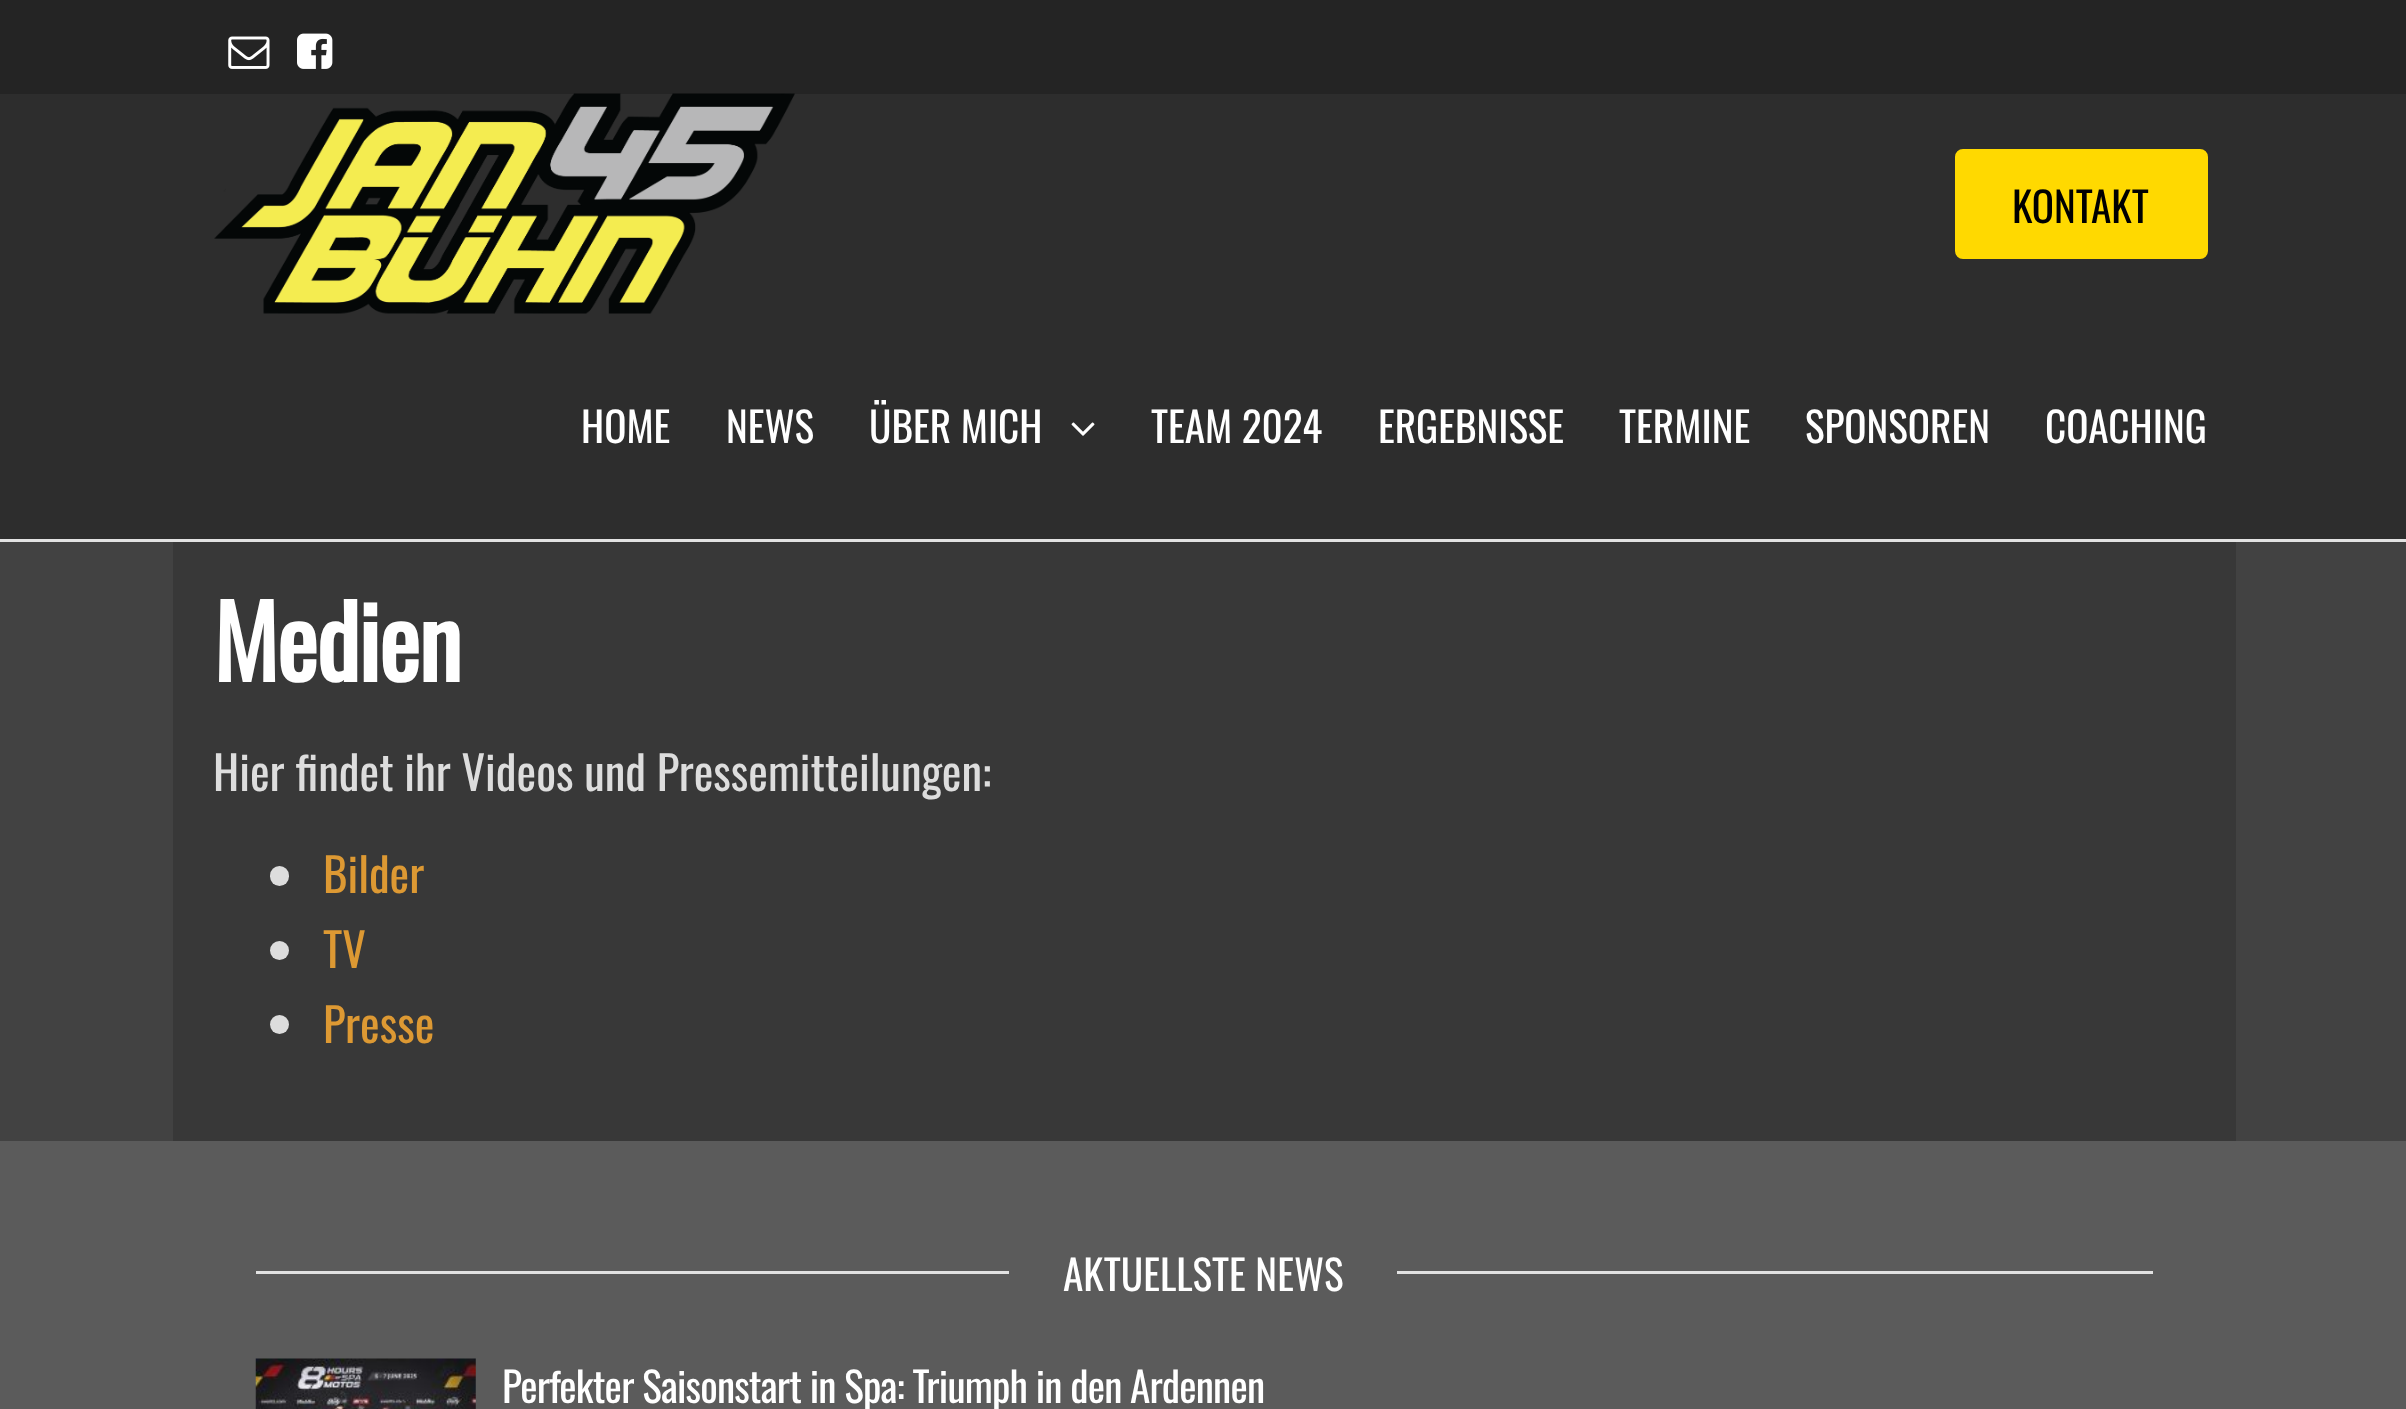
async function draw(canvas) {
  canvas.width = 2406
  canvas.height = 1409
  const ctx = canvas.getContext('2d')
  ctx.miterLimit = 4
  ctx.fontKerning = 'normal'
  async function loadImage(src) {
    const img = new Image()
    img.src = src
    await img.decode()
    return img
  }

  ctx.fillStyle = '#424242'
  ctx.fillRect(0, 0, 2406, 1409)
  ctx.fillStyle = '#242424'
  ctx.fillRect(0, 0, 2406, 94)
  ctx.drawImage(await loadImage('image0.png'), 228, 36, 42, 33)
  ctx.drawImage(await loadImage('image1.png'), 297, 33, 36, 36)
  ctx.fillStyle = '#2d2d2d'
  ctx.fillRect(0, 94, 2406, 445)
  ctx.fillStyle = '#e2e2e2'
  ctx.fillRect(0, 539, 2406, 3)
  ctx.drawImage(await loadImage('image2.png'), 214, 93, 581, 221)
  ctx.fillStyle = '#ffd900'
  ctx.beginPath()
  ctx.roundRect(1956.5, 150.5, 250, 107, 6.5)
  ctx.fill()
  ctx.strokeStyle = '#ffd900'
  ctx.lineWidth = 3
  ctx.stroke()
  ctx.font = '41.25px Oswald'
  ctx.fillStyle = '#000'
  ctx.fillText('KONTAKT', 2012, 223)
  ctx.fillStyle = '#fff'
  ctx.fillText('HOME', 581, 443)
  ctx.fillText('NEWS', 726, 443)
  ctx.fillText('ÜBER MICH', 869, 443)
  ctx.drawImage(await loadImage('image3.png'), 1071, 422, 24, 14)
  ctx.fillText('TEAM 2024', 1151, 443)
  ctx.fillText('ERGEBNISSE', 1378, 443)
  ctx.fillText('TERMINE', 1619, 443)
  ctx.fillText('SPONSOREN', 1805, 443)
  ctx.fillText('COACHING', 2045, 443)
  ctx.fillStyle = '#383838'
  ctx.fillRect(173, 542, 2063, 599)
  ctx.letterSpacing = '-2px'
  ctx.font = 'bold 99px Oswald'
  ctx.fillStyle = '#fff'
  ctx.fillText('Medien', 213, 682)
  ctx.letterSpacing = '0px'
  ctx.font = '46.75px Oswald'
  ctx.fillStyle = '#ddd'
  ctx.fillText('Hier findet ihr Videos und Pressemitteilungen:', 213, 791)
  ctx.beginPath()
  ctx.roundRect(270, 866, 19, 20, 9.5)
  ctx.fill()
  ctx.fillStyle = '#d93'
  ctx.fillText('Bilder', 323, 893)
  ctx.fillStyle = '#ddd'
  ctx.beginPath()
  ctx.arc(279.5, 950.5, 9.5, 0, 2 * Math.PI)
  ctx.fill()
  ctx.fillStyle = '#d93'
  ctx.fillText('TV', 323, 968)
  ctx.fillStyle = '#ddd'
  ctx.beginPath()
  ctx.arc(279.5, 1024.5, 9.5, 0, 2 * Math.PI)
  ctx.fill()
  ctx.fillStyle = '#d93'
  ctx.fillText('Presse', 323, 1043)
  ctx.fillStyle = '#5b5b5b'
  ctx.fillRect(0, 1141, 2406, 268)
  ctx.fillStyle = '#e2e2e2'
  ctx.fillRect(256, 1271, 1897, 3)
  ctx.fillStyle = '#5b5b5b'
  ctx.fillRect(1009, 1271, 388, 3)
  ctx.font = '41.25px Oswald'
  ctx.fillStyle = '#fff'
  ctx.fillText('AKTUELLSTE NEWS', 1063, 1291)
  ctx.drawImage(await loadImage('image4.png'), 255, 1358, 221, 51)
  ctx.letterSpacing = '-0.82px'
  ctx.fillText('Perfekter Saisonstart in Spa: Triumph in den Ardennen', 502, 1403)
}

draw(document.querySelector('canvas'))
